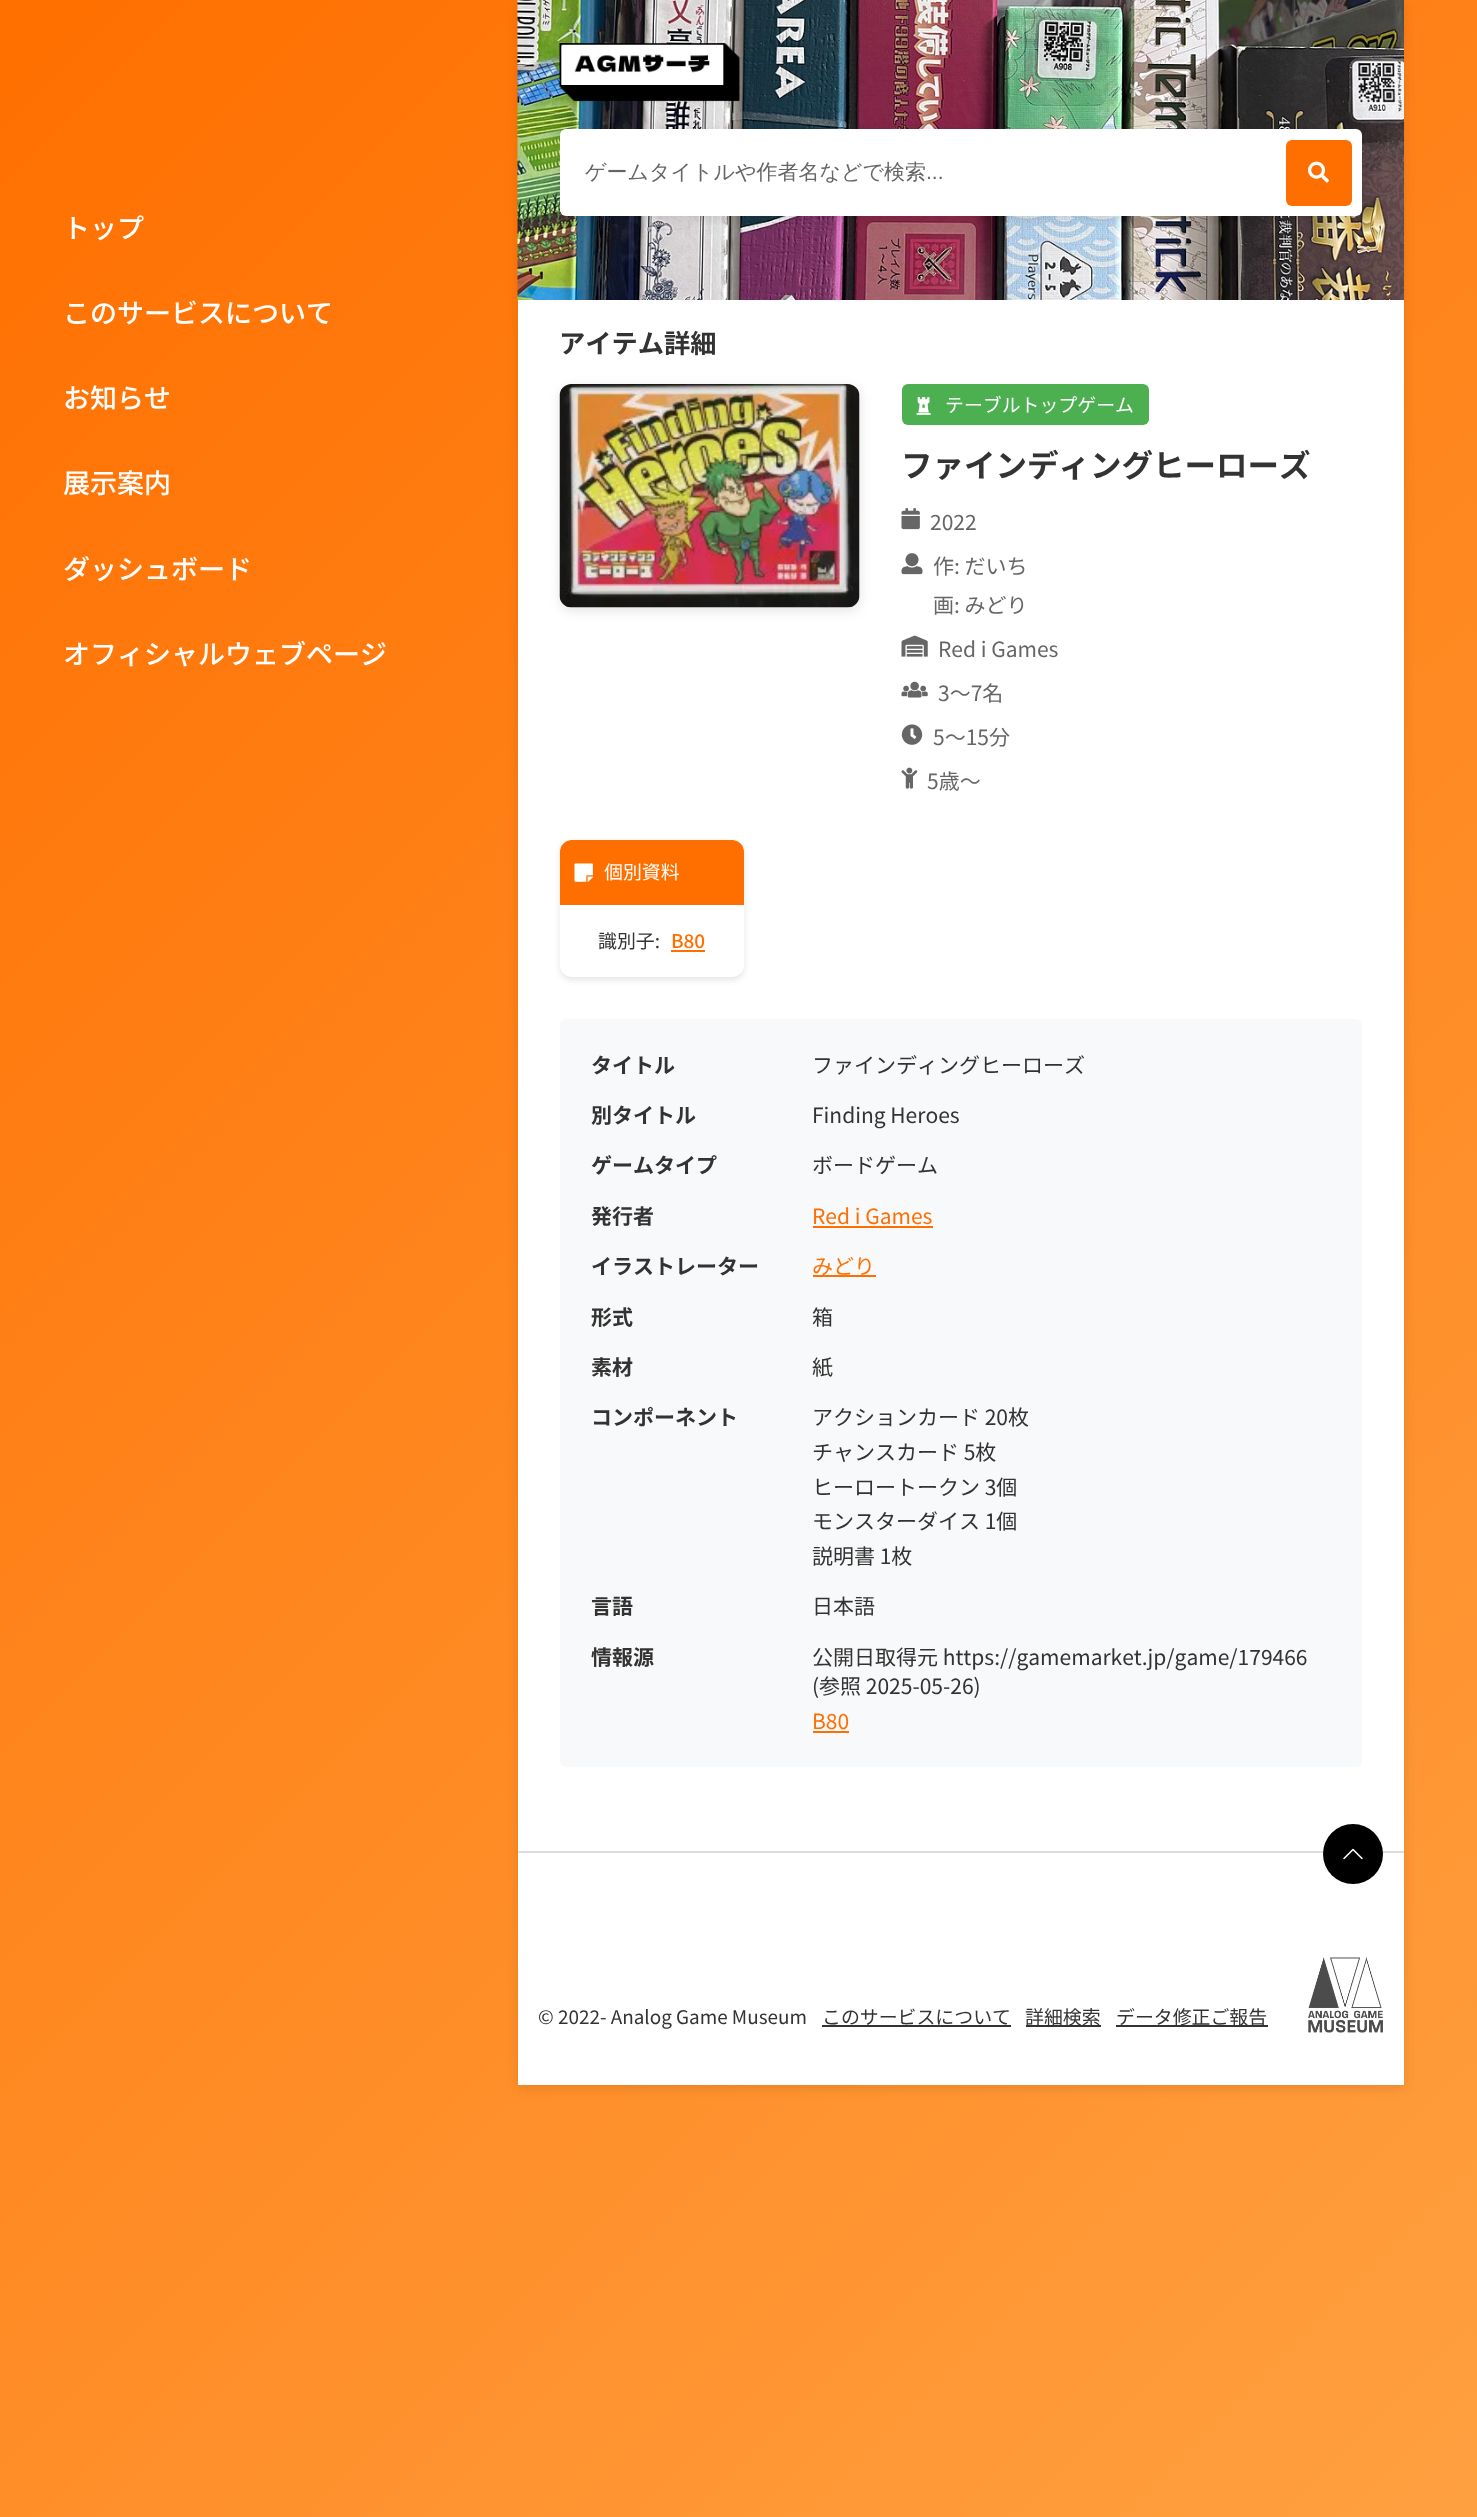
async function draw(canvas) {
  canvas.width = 1477
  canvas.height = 2517
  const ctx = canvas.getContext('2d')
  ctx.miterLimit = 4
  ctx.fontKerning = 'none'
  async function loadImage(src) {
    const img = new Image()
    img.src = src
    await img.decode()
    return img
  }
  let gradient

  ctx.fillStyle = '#fff'
  ctx.fillRect(0, 0, 1477, 2517)
  gradient = ctx.createLinearGradient(-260, 260, 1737, 2257)
  gradient.addColorStop(0, '#ff6f00')
  gradient.addColorStop(1, '#ffa040')
  ctx.fillStyle = gradient
  ctx.fillRect(0, 0, 1477, 2517)
  ctx.font = '500 27px Noto Sans JP'
  ctx.fillStyle = '#fff'
  ctx.fillText('トップ', 63, 238)
  ctx.fillText('このサービスについて', 63, 323)
  ctx.fillText('お知らせ', 63, 408)
  ctx.fillText('展示案内', 63, 493)
  ctx.fillText('ダッシュボード', 63, 579)
  ctx.fillText('オフィシャルウェブページ', 63, 664)
  ctx.fillStyle = '#0000001a'
  ctx.filter = 'blur(6px)'
  ctx.beginPath()
  ctx.rect(518, 3, 886, 2085)
  ctx.fill()
  ctx.filter = 'none'
  ctx.fillStyle = '#fff'
  ctx.fillRect(518, 300, 886, 1785)
  ctx.drawImage(await loadImage('image0.png'), 517, 0, 887, 300)
  ctx.drawImage(await loadImage('image1.png'), 559, 42, 181, 60)
  ctx.fillStyle = '#0000001a'
  ctx.filter = 'blur(6px)'
  ctx.beginPath()
  ctx.roundRect(560, 132, 802, 87, 6)
  ctx.fill()
  ctx.filter = 'none'
  ctx.fillStyle = '#fff'
  ctx.beginPath()
  ctx.roundRect(560, 129, 802, 87, 6)
  ctx.fill()
  ctx.font = '500 21px WenQuanYi Zen Hei'
  ctx.fillStyle = '#666'
  ctx.fillText('ゲームタイトルや作者名などで検索', 585, 179)
  ctx.font = '21px Liberation Sans'
  ctx.fillText('...', 926, 179)
  ctx.fillStyle = '#ff6f00'
  ctx.beginPath()
  ctx.roundRect(1286, 140, 66, 66, 6)
  ctx.fill()
  ctx.drawImage(await loadImage('image2.png'), 1308, 161, 21, 22)
  ctx.font = 'bold 26.25px Noto Sans JP'
  ctx.fillStyle = '#333'
  ctx.fillText('アイテム詳細', 559, 353)
  ctx.fillStyle = '#0000001a'
  ctx.filter = 'blur(6px)'
  ctx.beginPath()
  ctx.roundRect(560, 387, 300, 224, 12)
  ctx.fill()
  ctx.filter = 'none'
  ctx.drawImage(await loadImage('image3.png'), 559, 384, 301, 224)
  ctx.fillStyle = '#4caf50'
  ctx.beginPath()
  ctx.roundRect(902, 384, 247, 41, 6)
  ctx.fill()
  ctx.drawImage(await loadImage('image4.png'), 916, 397, 15, 18)
  ctx.font = '18.9px Noto Sans JP'
  ctx.fillStyle = '#fff'
  ctx.fillText('テーブルトップゲーム', 945, 412)
  ctx.font = 'bold 31.5px Noto Sans JP'
  ctx.fillStyle = '#333'
  ctx.fillText('ファインディングヒーローズ', 901, 477)
  ctx.drawImage(await loadImage('image5.png'), 901, 508, 19, 22)
  ctx.font = '21px Noto Sans JP'
  ctx.fillStyle = '#666'
  ctx.fillText('2022', 930, 530)
  ctx.drawImage(await loadImage('image6.png'), 901, 553, 22, 22)
  ctx.fillText('作: だいち', 933, 574)
  ctx.fillText('画: みどり', 933, 613)
  ctx.drawImage(await loadImage('image7.png'), 901, 635, 27, 22)
  ctx.fillText('Red i Games', 938, 657)
  ctx.drawImage(await loadImage('image8.png'), 901, 681, 27, 17)
  ctx.fillText('3〜7名', 938, 701)
  ctx.drawImage(await loadImage('image9.png'), 901, 724, 22, 21)
  ctx.fillText('5〜15分', 933, 745)
  ctx.drawImage(await loadImage('image10.png'), 901, 767, 17, 22)
  ctx.fillText('5歳〜', 927, 789)
  ctx.fillStyle = '#0000001a'
  ctx.filter = 'blur(3px)'
  ctx.beginPath()
  ctx.roundRect(560, 843, 184, 137, 12)
  ctx.fill()
  ctx.filter = 'none'
  ctx.fillStyle = '#fff'
  ctx.beginPath()
  ctx.roundRect(560, 840, 184, 137, 12)
  ctx.fill()
  ctx.fillStyle = '#ff6f00'
  ctx.beginPath()
  ctx.roundRect(560, 840, 184, 65, [12, 12, 0, 0])
  ctx.fill()
  ctx.drawImage(await loadImage('image11.png'), 574, 863, 19, 19)
  ctx.font = '18.9px Noto Sans JP'
  ctx.fillStyle = '#fff'
  ctx.fillText('個別資料', 604, 879)
  ctx.fillStyle = '#333'
  ctx.fillText('識別子:', 598, 948)
  ctx.font = '500 18.9px Noto Sans JP'
  ctx.fillStyle = '#ff6f00'
  ctx.fillText('B80', 671, 948)
  ctx.fillRect(671, 950, 34, 2)
  ctx.fillStyle = '#f8f9fa'
  ctx.beginPath()
  ctx.roundRect(560, 1019, 802, 748, 6)
  ctx.fill()
  ctx.font = 'bold 21px Noto Sans JP'
  ctx.fillStyle = '#333'
  ctx.fillText('タイトル', 591, 1073)
  ctx.font = '21px Noto Sans JP'
  ctx.fillText('ファインディングヒーローズ', 812, 1073)
  ctx.font = 'bold 21px Noto Sans JP'
  ctx.fillText('別タイトル', 591, 1123)
  ctx.font = '21px Noto Sans JP'
  ctx.fillText('Finding Heroes', 812, 1123)
  ctx.font = 'bold 21px Noto Sans JP'
  ctx.fillText('ゲームタイプ', 591, 1173)
  ctx.font = '21px Noto Sans JP'
  ctx.fillText('ボードゲーム', 812, 1173)
  ctx.font = 'bold 21px Noto Sans JP'
  ctx.fillText('発行者', 591, 1224)
  ctx.font = '21px Noto Sans JP'
  ctx.fillStyle = '#ff6f00'
  ctx.fillText('Red i Games', 812, 1224)
  ctx.fillRect(813, 1226, 120, 2)
  ctx.font = 'bold 21px Noto Sans JP'
  ctx.fillStyle = '#333'
  ctx.fillText('イラストレーター', 591, 1274)
  ctx.fillStyle = '#ff6f00'
  ctx.fillRect(813, 1275, 63, 2)
  ctx.font = '21px Noto Sans JP'
  ctx.fillText('みどり', 812, 1274)
  ctx.font = 'bold 21px Noto Sans JP'
  ctx.fillStyle = '#333'
  ctx.fillText('形式', 591, 1325)
  ctx.font = '21px Noto Sans JP'
  ctx.fillText('箱', 812, 1325)
  ctx.font = 'bold 21px Noto Sans JP'
  ctx.fillText('素材', 591, 1375)
  ctx.font = '21px Noto Sans JP'
  ctx.fillText('紙', 812, 1375)
  ctx.font = 'bold 21px Noto Sans JP'
  ctx.fillText('コンポーネント', 591, 1425)
  ctx.font = '21px Noto Sans JP'
  ctx.fillText('アクションカード 20枚', 812, 1425)
  ctx.fillText('チャンスカード 5枚', 812, 1460)
  ctx.fillText('ヒーロートークン 3個', 812, 1495)
  ctx.fillText('モンスターダイス 1個', 812, 1529)
  ctx.fillText('説明書 1枚', 812, 1564)
  ctx.font = 'bold 21px Noto Sans JP'
  ctx.fillText('言語', 591, 1614)
  ctx.font = '21px Noto Sans JP'
  ctx.fillText('日本語', 812, 1614)
  ctx.font = 'bold 21px Noto Sans JP'
  ctx.fillText('情報源', 591, 1665)
  ctx.font = '21px Noto Sans JP'
  ctx.fillText('公開日取得元 https://gamemarket.jp/game/179466', 812, 1665)
  ctx.fillText('(参照 2025-05-26)', 812, 1694)
  ctx.fillStyle = '#ff6f00'
  ctx.fillText('B80', 812, 1729)
  ctx.fillRect(813, 1731, 36, 2)
  ctx.fillStyle = '#ddd'
  ctx.fillRect(518, 1851, 886, 2)
  ctx.font = '18.9px Noto Sans JP'
  ctx.fillStyle = '#333'
  ctx.fillText('© 2022- Analog Game Museum', 538, 2024)
  ctx.fillText('このサービスについて', 822, 2024)
  ctx.fillRect(822, 2025, 189, 2)
  ctx.fillRect(1026, 2025, 75, 2)
  ctx.fillText('詳細検索', 1025, 2024)
  ctx.fillRect(1116, 2025, 152, 2)
  ctx.fillText('データ修正ご報告', 1116, 2024)
  ctx.fillStyle = '#000'
  ctx.beginPath()
  ctx.arc(1353, 1854, 30, 0, 2 * Math.PI)
  ctx.fill()
  ctx.drawImage(await loadImage('image12.png'), 1343, 1848, 20, 12)
  ctx.drawImage(await loadImage('image13.png'), 1308, 1957, 75, 76)
}

draw(document.querySelector('canvas'))
